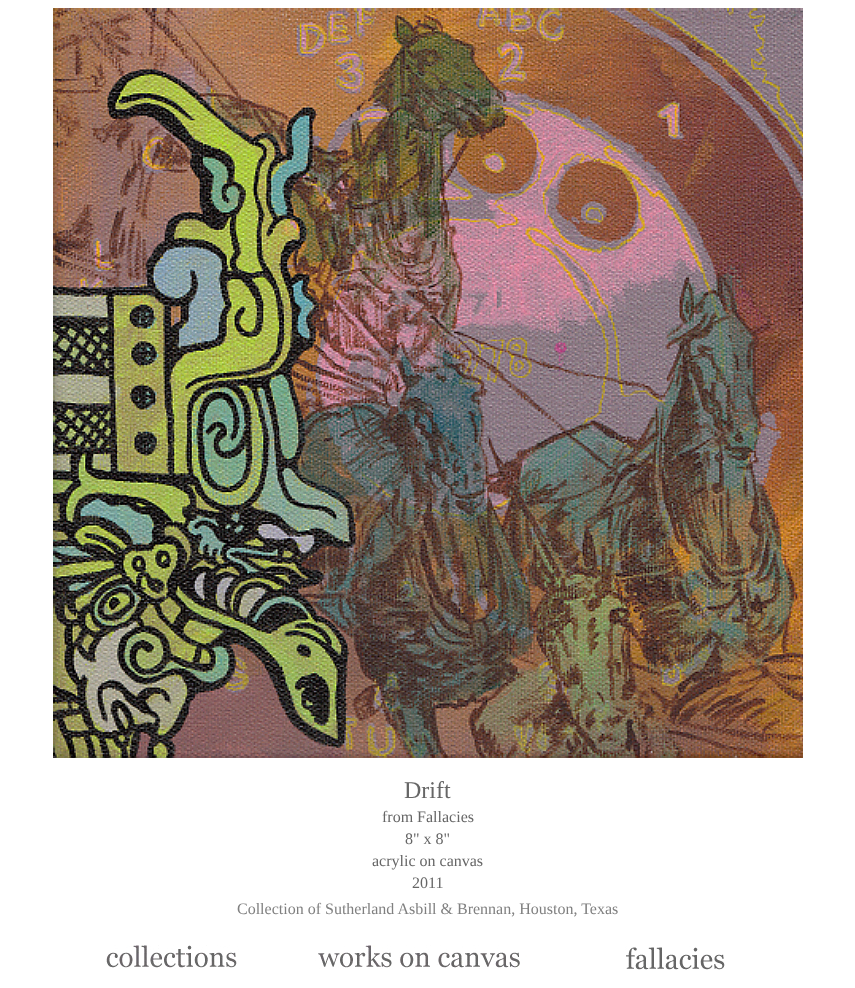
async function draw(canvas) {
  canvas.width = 855
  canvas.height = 988
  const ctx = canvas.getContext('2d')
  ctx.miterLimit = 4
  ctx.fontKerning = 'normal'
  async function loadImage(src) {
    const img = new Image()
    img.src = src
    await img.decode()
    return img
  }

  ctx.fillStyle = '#fff'
  ctx.fillRect(0, 0, 855, 988)
  ctx.drawImage(await loadImage('image0.png'), 53, 8, 750, 750)
  ctx.font = '24px Liberation Serif'
  ctx.fillStyle = '#666'
  ctx.fillText('Drift', 404, 798)
  ctx.font = '16px Liberation Serif'
  ctx.fillText('from Fallacies', 382, 822)
  ctx.fillText('8" x 8"', 405, 844)
  ctx.fillText('acrylic on canvas', 372, 866)
  ctx.fillText('2011', 412, 888)
  ctx.fillStyle = '#808080'
  ctx.fillText('Collection of Sutherland Asbill & Brennan, Houston, Texas', 237, 914)
  ctx.drawImage(await loadImage('image1.png'), 106, 945, 619, 25)
}

draw(document.querySelector('canvas'))
